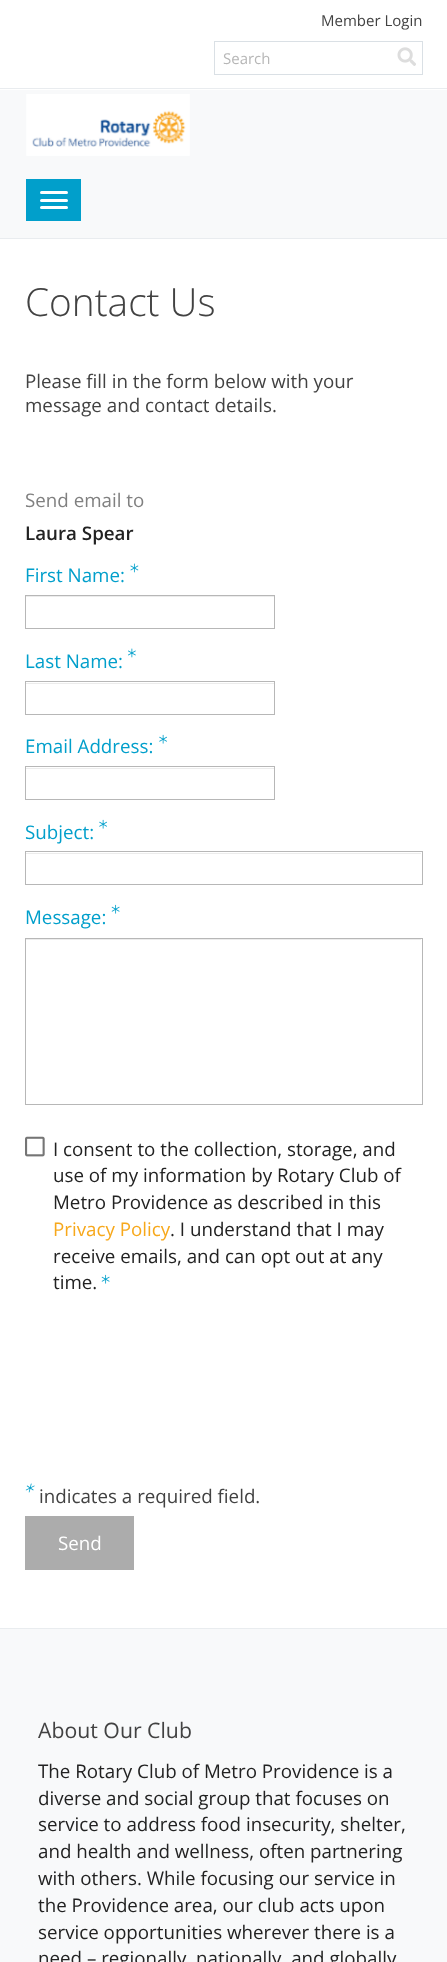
async function draw(canvas) {
  canvas.width = 447
  canvas.height = 1962
  const ctx = canvas.getContext('2d')
  ctx.miterLimit = 4
  ctx.fontKerning = 'normal'
  async function loadImage(src) {
    const img = new Image()
    img.src = src
    await img.decode()
    return img
  }

  ctx.fillStyle = '#fff'
  ctx.fillRect(0, 0, 447, 1962)
  ctx.font = '15px Open Sans'
  ctx.fillStyle = '#424242'
  ctx.fillText('Member Login', 321, 26)
  ctx.strokeStyle = '#dae0e5'
  ctx.strokeRect(214.5, 41.5, 208, 33)
  ctx.fillStyle = '#b7b7b7'
  ctx.fillText('Search', 223, 64)
  ctx.drawImage(await loadImage('image0.png'), 397, 47, 19, 19)
  ctx.fillStyle = '#e9ecef'
  ctx.fillRect(0, 88, 447, 1)
  ctx.fillStyle = '#f8f9fa'
  ctx.fillRect(0, 90, 447, 148)
  ctx.fillStyle = '#e9ecef'
  ctx.fillRect(0, 238, 447, 1)
  ctx.drawImage(await loadImage('image1.png'), 26, 94, 164, 62)
  ctx.fillStyle = '#019fcb'
  ctx.fillRect(26, 179, 55, 42)
  ctx.fillStyle = '#fff'
  ctx.beginPath()
  ctx.roundRect(40, 191, 28, 3, 1.5)
  ctx.fill()
  ctx.beginPath()
  ctx.roundRect(40, 199, 28, 3, 1.5)
  ctx.fill()
  ctx.beginPath()
  ctx.roundRect(40, 206, 28, 3, 1.5)
  ctx.fill()
  ctx.font = '300 38.75px Open Sans'
  ctx.fillStyle = '#424242'
  ctx.fillText('Contact Us', 25, 316)
  ctx.font = '18.75px Open Sans'
  ctx.fillText('Please fill in the form below with your', 25, 388)
  ctx.fillText('message and contact details.', 25, 412)
  ctx.fillStyle = '#808080'
  ctx.fillText('Send email to', 25, 507)
  ctx.font = '600 18.75px Open Sans'
  ctx.fillStyle = '#222'
  ctx.fillText('Laura Spear', 25, 540)
  ctx.font = '18.75px Open Sans'
  ctx.fillStyle = '#019fcb'
  ctx.fillText('First Name:', 25, 582)
  ctx.drawImage(await loadImage('image2.png'), 130, 563, 9, 10)
  ctx.fillStyle = '#ececec'
  ctx.fillRect(26, 596, 248, 1)
  ctx.strokeStyle = '#b7b7b7'
  ctx.strokeRect(25.5, 595.5, 249, 33)
  ctx.drawImage(await loadImage('image3.png'), 128, 648, 8, 10)
  ctx.fillStyle = '#019fcb'
  ctx.fillText('Last Name:', 25, 668)
  ctx.fillStyle = '#ececec'
  ctx.fillRect(26, 683, 248, 1)
  ctx.strokeRect(25.5, 681.5, 249, 33)
  ctx.fillStyle = '#019fcb'
  ctx.fillText('Email Address:', 25, 753)
  ctx.drawImage(await loadImage('image4.png'), 159, 734, 8, 10)
  ctx.fillStyle = '#ececec'
  ctx.fillRect(26, 768, 248, 1)
  ctx.strokeRect(25.5, 766.5, 249, 33)
  ctx.fillStyle = '#019fcb'
  ctx.fillText('Subject:', 25, 839)
  ctx.drawImage(await loadImage('image4.png'), 99, 819, 8, 10)
  ctx.fillStyle = '#ececec'
  ctx.fillRect(26, 853, 395, 1)
  ctx.strokeRect(25.5, 851.5, 397, 33)
  ctx.drawImage(await loadImage('image5.png'), 111, 904, 9, 10)
  ctx.fillStyle = '#019fcb'
  ctx.fillText('Message:', 25, 924)
  ctx.fillStyle = '#ececec'
  ctx.fillRect(26, 939, 395, 1)
  ctx.strokeRect(25.5, 938.5, 397, 166)
  ctx.drawImage(await loadImage('image6.png'), 25, 1136, 20, 21)
  ctx.fillStyle = '#222'
  ctx.fillText('I consent to the collection, storage, and', 53, 1156)
  ctx.fillText('use of my information by Rotary Club of', 53, 1182)
  ctx.fillText('Metro Providence as described in this', 53, 1209)
  ctx.fillStyle = '#f7a81b'
  ctx.fillText('Privacy Policy', 53, 1236)
  ctx.fillStyle = '#222'
  ctx.fillText('. I understand that I may', 170, 1236)
  ctx.fillText('receive emails, and can opt out at any', 53, 1263)
  ctx.fillText('time.', 53, 1289)
  ctx.drawImage(await loadImage('image5.png'), 101, 1274, 9, 10)
  ctx.drawImage(await loadImage('image7.png'), 25, 1483, 10, 10)
  ctx.fillStyle = '#424242'
  ctx.fillText('indicates a required field.', 39, 1503)
  ctx.fillStyle = '#acacac'
  ctx.fillRect(25, 1516, 109, 54)
  ctx.fillStyle = '#fff'
  ctx.fillText('Send', 58, 1550)
  ctx.fillStyle = '#f8f9fa'
  ctx.fillRect(0, 1629, 447, 333)
  ctx.fillStyle = '#e9ecef'
  ctx.fillRect(0, 1628, 447, 1)
  ctx.font = '21.25px Open Sans'
  ctx.fillStyle = '#424242'
  ctx.fillText('About Our Club', 38, 1738)
  ctx.font = '18.75px Open Sans'
  ctx.fillStyle = '#222'
  ctx.fillText('The Rotary Club of Metro Providence is a', 38, 1778)
  ctx.fillText('diverse and social group that focuses on', 38, 1805)
  ctx.fillText('service to address food insecurity, shelter,', 38, 1831)
  ctx.fillText('and health and wellness, often partnering', 38, 1858)
  ctx.fillText('with others. While focusing our service in', 38, 1885)
  ctx.fillText('the Providence area, our club acts upon', 38, 1912)
  ctx.fillText('service opportunities wherever there is a', 38, 1939)
  ctx.fillText('need – regionally, nationally, and globally', 38, 1965)
}

draw(document.querySelector('canvas'))
